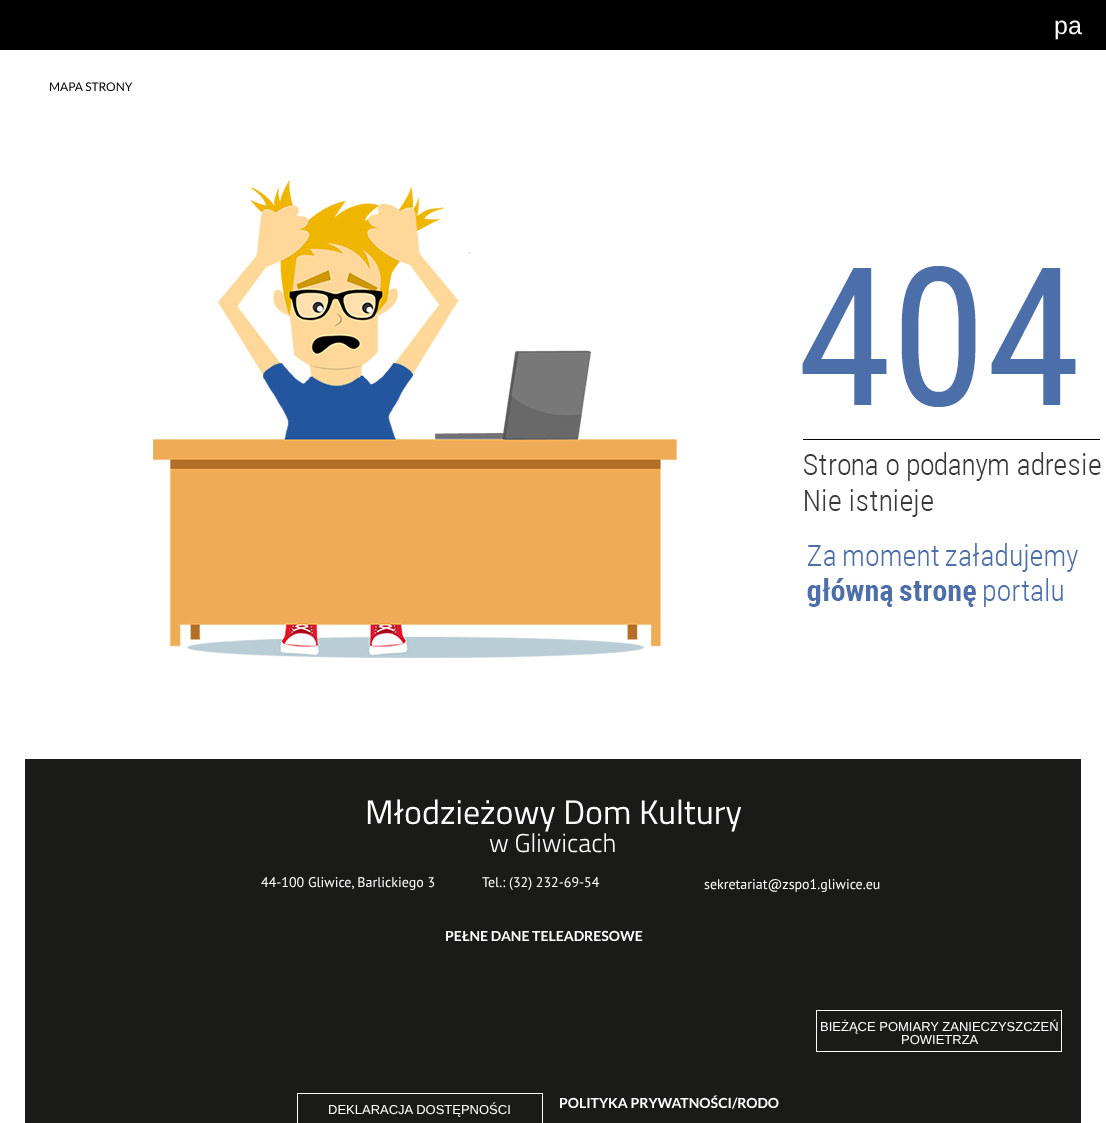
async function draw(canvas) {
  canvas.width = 1106
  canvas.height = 1123
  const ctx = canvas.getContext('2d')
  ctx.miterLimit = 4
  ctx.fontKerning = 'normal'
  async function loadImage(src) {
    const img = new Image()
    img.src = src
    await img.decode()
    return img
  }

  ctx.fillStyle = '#fff'
  ctx.fillRect(0, 0, 1106, 1123)
  ctx.fillStyle = '#000'
  ctx.fillRect(0, 0, 1106, 50)
  ctx.font = '25px Liberation Sans'
  ctx.fillStyle = '#fff'
  ctx.fillText('pa', 1054, 34)
  ctx.font = '12px Lato'
  ctx.fillStyle = '#000'
  ctx.fillText('MAPA STRONY', 49, 91)
  ctx.drawImage(await loadImage('image0.png'), 153, 180, 948, 478)
  ctx.fillStyle = '#1a1a18'
  ctx.fillRect(25, 759, 1056, 364)
  ctx.font = '34px Titillium Web'
  ctx.fillStyle = '#fff'
  ctx.fillText('Młodzieżowy Dom Kultury', 365, 824)
  ctx.font = '300 26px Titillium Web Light'
  ctx.fillText('w Gliwicach', 489, 852)
  ctx.font = '14px PT Sans'
  ctx.fillText('44-100 Gliwice, Barlickiego 3', 261, 887)
  ctx.fillText('Tel.: (32) 232-69-54', 482, 887)
  ctx.fillText('sekretariat@zspo1.gliwice.eu', 704, 889)
  ctx.font = 'bold 14px Lato'
  ctx.fillText('PEŁNE DANE TELEADRESOWE', 445, 941)
  ctx.strokeStyle = '#fff'
  ctx.strokeRect(816.5, 1010.5, 245, 41)
  ctx.font = '13px Liberation Sans'
  ctx.fillText('BIEŻĄCE POMIARY ZANIECZYSZCZEŃ', 820, 1031)
  ctx.fillText('POWIETRZA', 901, 1044)
  ctx.strokeRect(297.5, 1093.5, 245, 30)
  ctx.fillText('DEKLARACJA DOSTĘPNOŚCI', 328, 1114)
  ctx.font = 'bold 14px Lato'
  ctx.fillText('POLITYKA PRYWATNOŚCI/RODO', 559, 1108)
}

draw(document.querySelector('canvas'))
